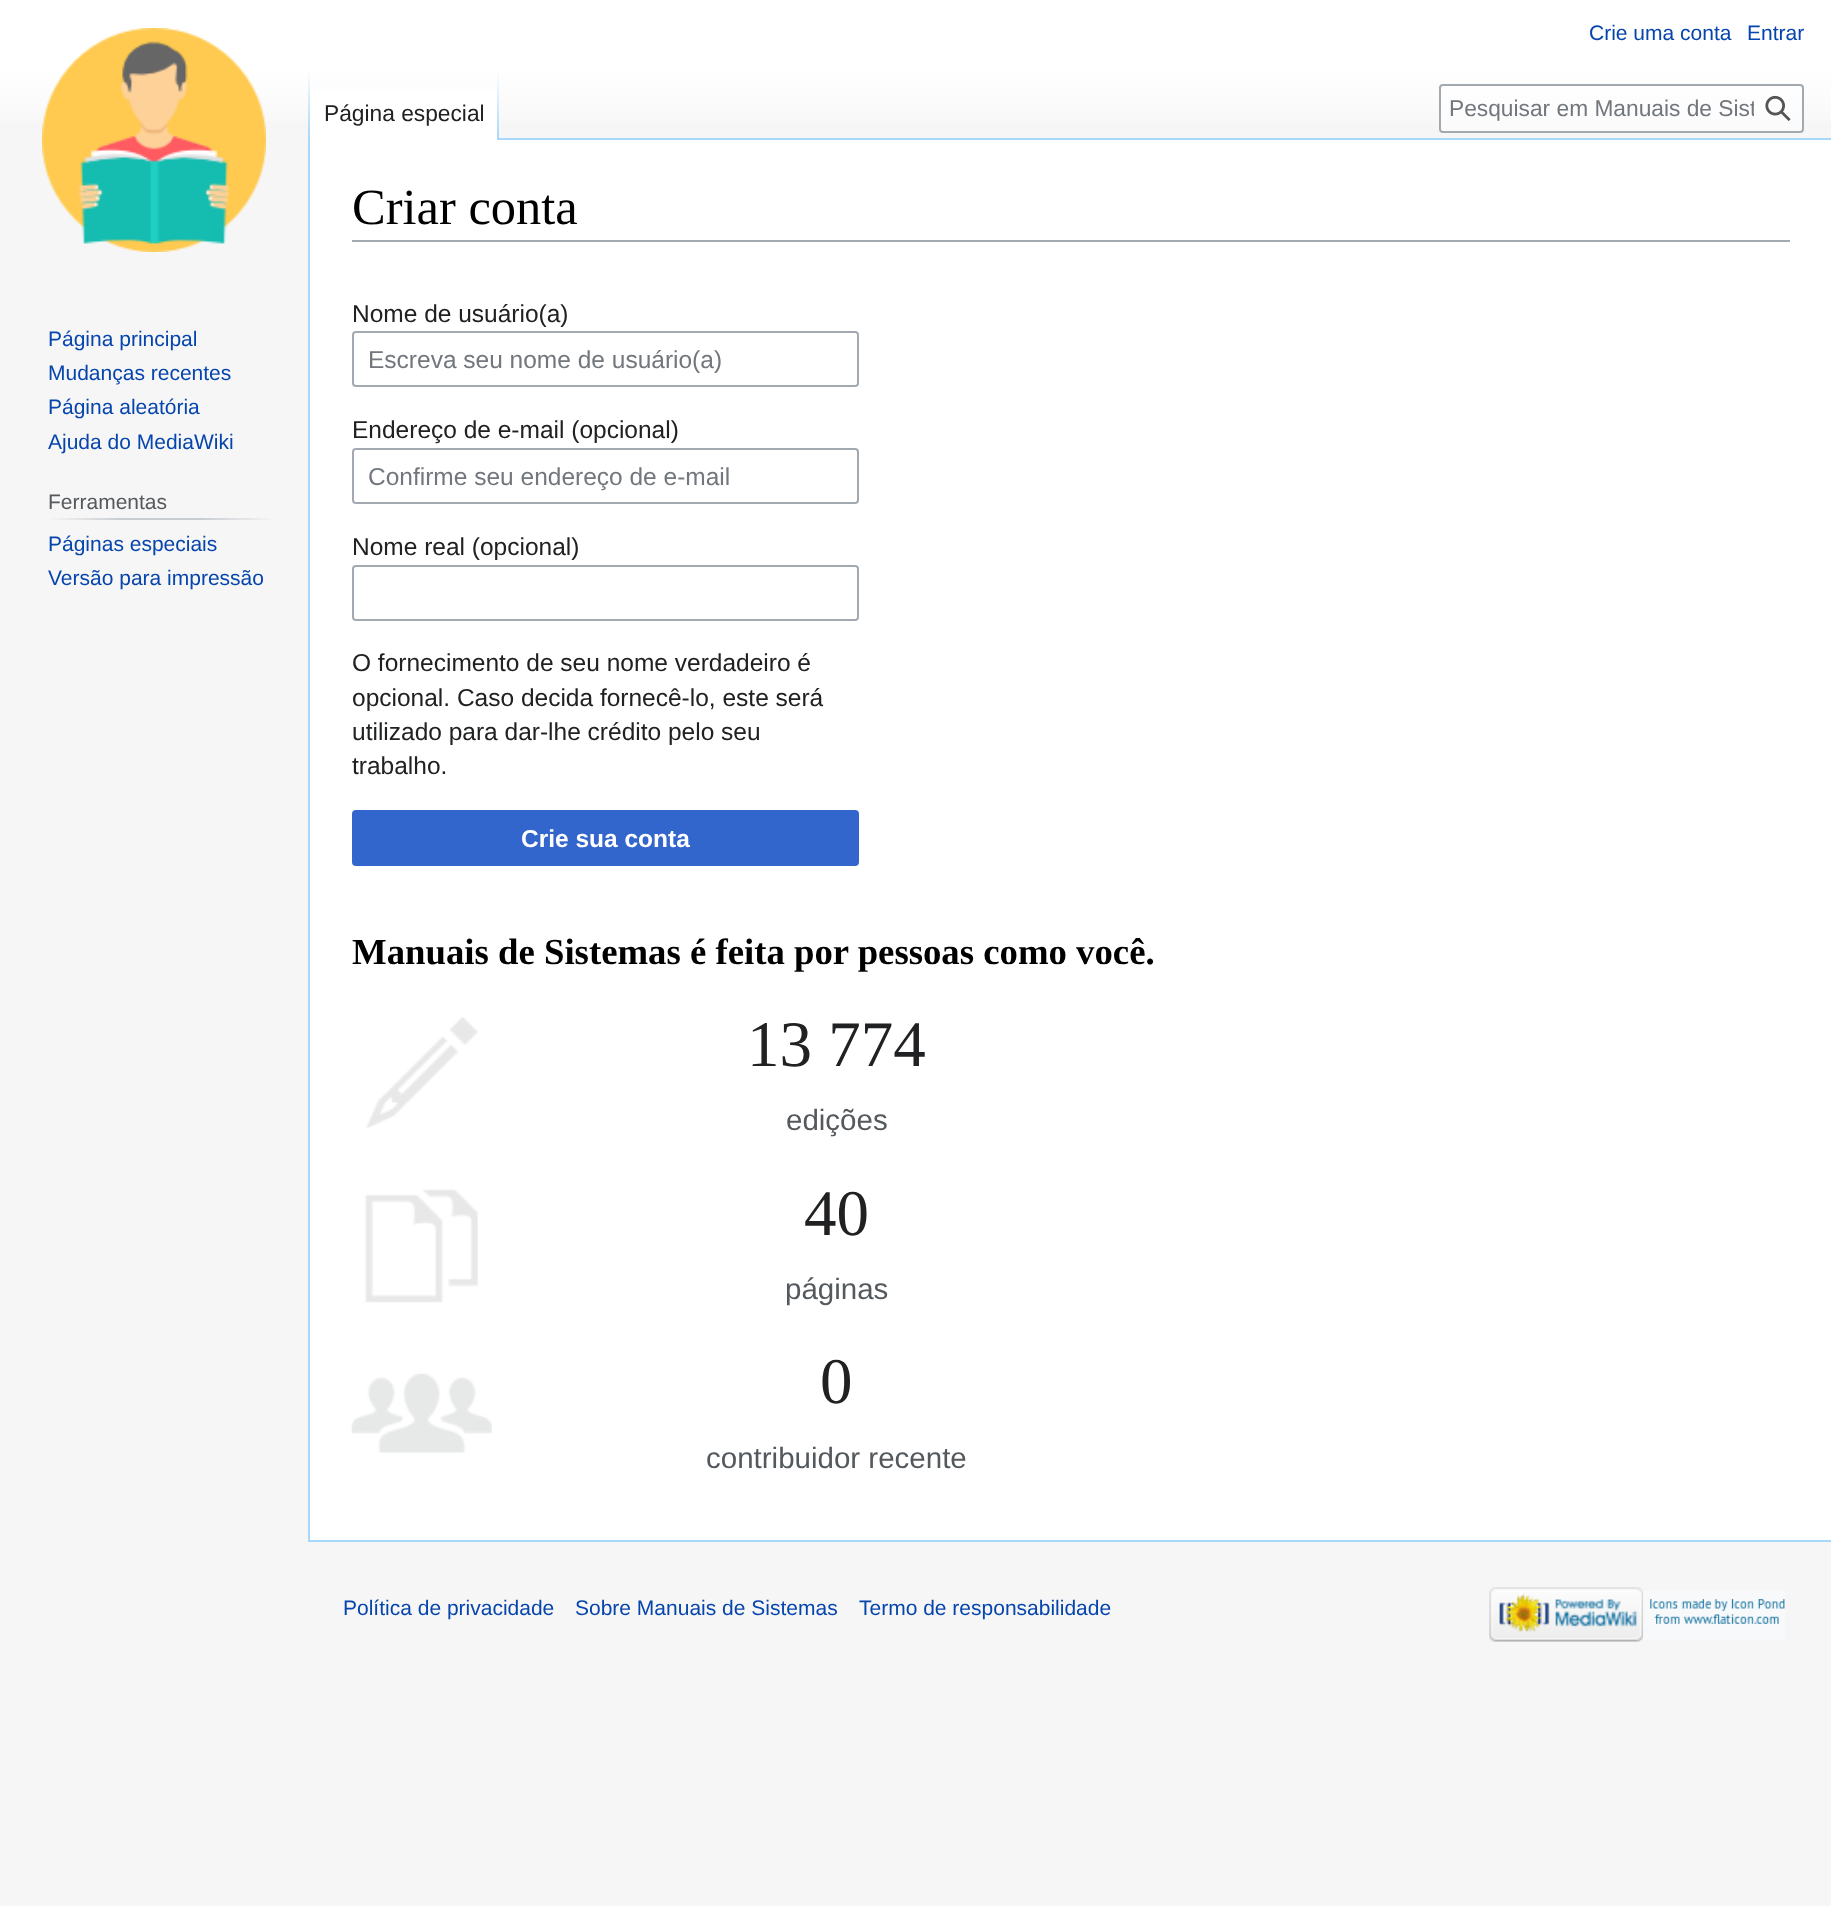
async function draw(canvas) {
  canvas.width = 1831
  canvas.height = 1906
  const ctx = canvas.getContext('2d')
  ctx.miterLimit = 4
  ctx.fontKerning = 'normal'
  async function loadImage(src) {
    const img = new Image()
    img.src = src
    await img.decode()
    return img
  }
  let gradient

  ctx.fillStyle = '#f6f6f6'
  ctx.fillRect(0, 0, 1831, 1906)
  gradient = ctx.createLinearGradient(916, 0, 916, 140)
  gradient.addColorStop(0.5, '#fff')
  gradient.addColorStop(1, '#f6f6f6')
  ctx.fillStyle = gradient
  ctx.fillRect(0, 0, 1831, 121)
  ctx.font = '21px Liberation Sans'
  ctx.fillStyle = '#0645ad'
  ctx.fillText('Crie uma conta', 1589, 40)
  ctx.fillText('Entrar', 1747, 40)
  ctx.fillStyle = '#a7d7f9'
  ctx.fillRect(308, 1540, 1523, 2)
  ctx.fillRect(308, 138, 2, 1404)
  gradient = ctx.createLinearGradient(309, 70, 309, 140)
  gradient.addColorStop(0, '#a7d7f900')
  gradient.addColorStop(1, '#a7d7f9')
  ctx.fillStyle = gradient
  ctx.fillRect(308, 70, 2, 70)
  ctx.fillStyle = '#fff'
  ctx.fillRect(310, 89, 187, 51)
  gradient = ctx.createLinearGradient(498, 70, 498, 140)
  gradient.addColorStop(0, '#fff')
  gradient.addColorStop(1, '#a7d7f9')
  ctx.fillStyle = gradient
  ctx.fillRect(497, 70, 2, 70)
  ctx.font = '22.75px Liberation Sans'
  ctx.fillStyle = '#202122'
  ctx.fillText('Página especial', 324, 121)
  ctx.fillStyle = '#ffffff80'
  ctx.beginPath()
  ctx.roundRect(1440, 85, 363, 47, 3)
  ctx.fill()
  ctx.strokeStyle = '#a2a9b1'
  ctx.lineWidth = 2
  ctx.stroke()
  ctx.save()
  ctx.beginPath()
  ctx.rect(1449, 96, 305, 27)
  ctx.clip()
  ctx.fillStyle = '#72777d'
  ctx.fillText('Pesquisar em Manuais de Sist', 1449, 116)
  ctx.restore()
  ctx.drawImage(await loadImage('image0.png'), 1765, 95, 26, 26)
  ctx.drawImage(await loadImage('image1.png'), 42, 28, 224, 224)
  ctx.font = '21px Liberation Sans'
  ctx.fillStyle = '#0645ad'
  ctx.fillText('Página principal', 48, 346)
  ctx.fillText('Mudanças recentes', 48, 380)
  ctx.fillText('Página aleatória', 48, 414)
  ctx.fillText('Ajuda do MediaWiki', 48, 449)
  gradient = ctx.createLinearGradient(47, 519, 277, 519)
  gradient.addColorStop(0, '#f6f6f6')
  gradient.addColorStop(0.33, '#c8ccd1')
  gradient.addColorStop(0.66, '#c8ccd1')
  gradient.addColorStop(1, '#f6f6f6')
  ctx.fillStyle = gradient
  ctx.fillRect(47, 518, 230, 2)
  ctx.fillStyle = '#54595d'
  ctx.fillText('Ferramentas', 48, 509)
  ctx.fillStyle = '#0645ad'
  ctx.fillText('Páginas especiais', 48, 551)
  ctx.fillText('Versão para impressão', 48, 585)
  ctx.fillStyle = '#fff'
  ctx.fillRect(310, 140, 1521, 1400)
  ctx.fillStyle = '#a7d7f9'
  ctx.fillRect(499, 138, 1332, 2)
  ctx.fillStyle = '#a2a9b1'
  ctx.fillRect(352, 240, 1438, 2)
  ctx.font = '50.5px Liberation Serif'
  ctx.fillStyle = '#000'
  ctx.fillText('Criar conta', 352, 224)
  ctx.font = '24.5px Liberation Sans'
  ctx.fillStyle = '#202122'
  ctx.fillText('Nome de usuário(a)', 352, 322)
  ctx.beginPath()
  ctx.roundRect(353, 332, 505, 54, 3)
  ctx.stroke()
  ctx.fillStyle = '#72777d'
  ctx.fillText('Escreva seu nome de usuário(a)', 368, 368)
  ctx.fillStyle = '#202122'
  ctx.fillText('Endereço de e-mail (opcional)', 352, 438)
  ctx.beginPath()
  ctx.roundRect(353, 449, 505, 54, 3)
  ctx.stroke()
  ctx.fillStyle = '#72777d'
  ctx.fillText('Confirme seu endereço de e-mail', 368, 485)
  ctx.fillStyle = '#202122'
  ctx.fillText('Nome real (opcional)', 352, 555)
  ctx.beginPath()
  ctx.roundRect(353, 566, 505, 54, 3)
  ctx.stroke()
  ctx.fillText('O fornecimento de seu nome verdadeiro é', 352, 671)
  ctx.fillText('opcional. Caso decida fornecê-lo, este será', 352, 706)
  ctx.fillText('utilizado para dar-lhe crédito pelo seu', 352, 740)
  ctx.fillText('trabalho.', 352, 774)
  ctx.fillStyle = '#36c'
  ctx.beginPath()
  ctx.roundRect(353, 811, 505, 54, 3)
  ctx.fill()
  ctx.strokeStyle = '#36c'
  ctx.stroke()
  ctx.font = 'bold 24.5px Liberation Sans'
  ctx.fillStyle = '#fff'
  ctx.fillText('Crie sua conta', 521, 847)
  ctx.font = 'bold 36.75px Liberation Serif'
  ctx.fillStyle = '#000'
  ctx.fillText('Manuais de Sistemas é feita por pessoas como você.', 352, 964)
  ctx.drawImage(await loadImage('image2.png'), 366, 1017, 112, 112)
  ctx.font = '65px Liberation Serif'
  ctx.fillStyle = '#202122'
  ctx.fillText('13 774', 747, 1066)
  ctx.font = '29.5px Liberation Sans'
  ctx.fillStyle = '#54595d'
  ctx.fillText('edições', 786, 1130)
  ctx.drawImage(await loadImage('image3.png'), 365, 1189, 113, 114)
  ctx.font = '65px Liberation Serif'
  ctx.fillStyle = '#202122'
  ctx.fillText('40', 804, 1235)
  ctx.font = '29.5px Liberation Sans'
  ctx.fillStyle = '#54595d'
  ctx.fillText('páginas', 785, 1299)
  ctx.drawImage(await loadImage('image4.png'), 351, 1373, 141, 80)
  ctx.font = '65px Liberation Serif'
  ctx.fillStyle = '#202122'
  ctx.fillText('0', 820, 1403)
  ctx.font = '29.5px Liberation Sans'
  ctx.fillStyle = '#54595d'
  ctx.fillText('contribuidor recente', 706, 1468)
  ctx.font = '21px Liberation Sans'
  ctx.fillStyle = '#0645ad'
  ctx.fillText('Política de privacidade', 343, 1615)
  ctx.fillText('Sobre Manuais de Sistemas', 575, 1615)
  ctx.fillText('Termo de responsabilidade', 859, 1615)
  ctx.drawImage(await loadImage('image5.png'), 1489, 1587, 155, 55)
  ctx.drawImage(await loadImage('image6.png'), 1643, 1590, 142, 50)
}

draw(document.querySelector('canvas'))
